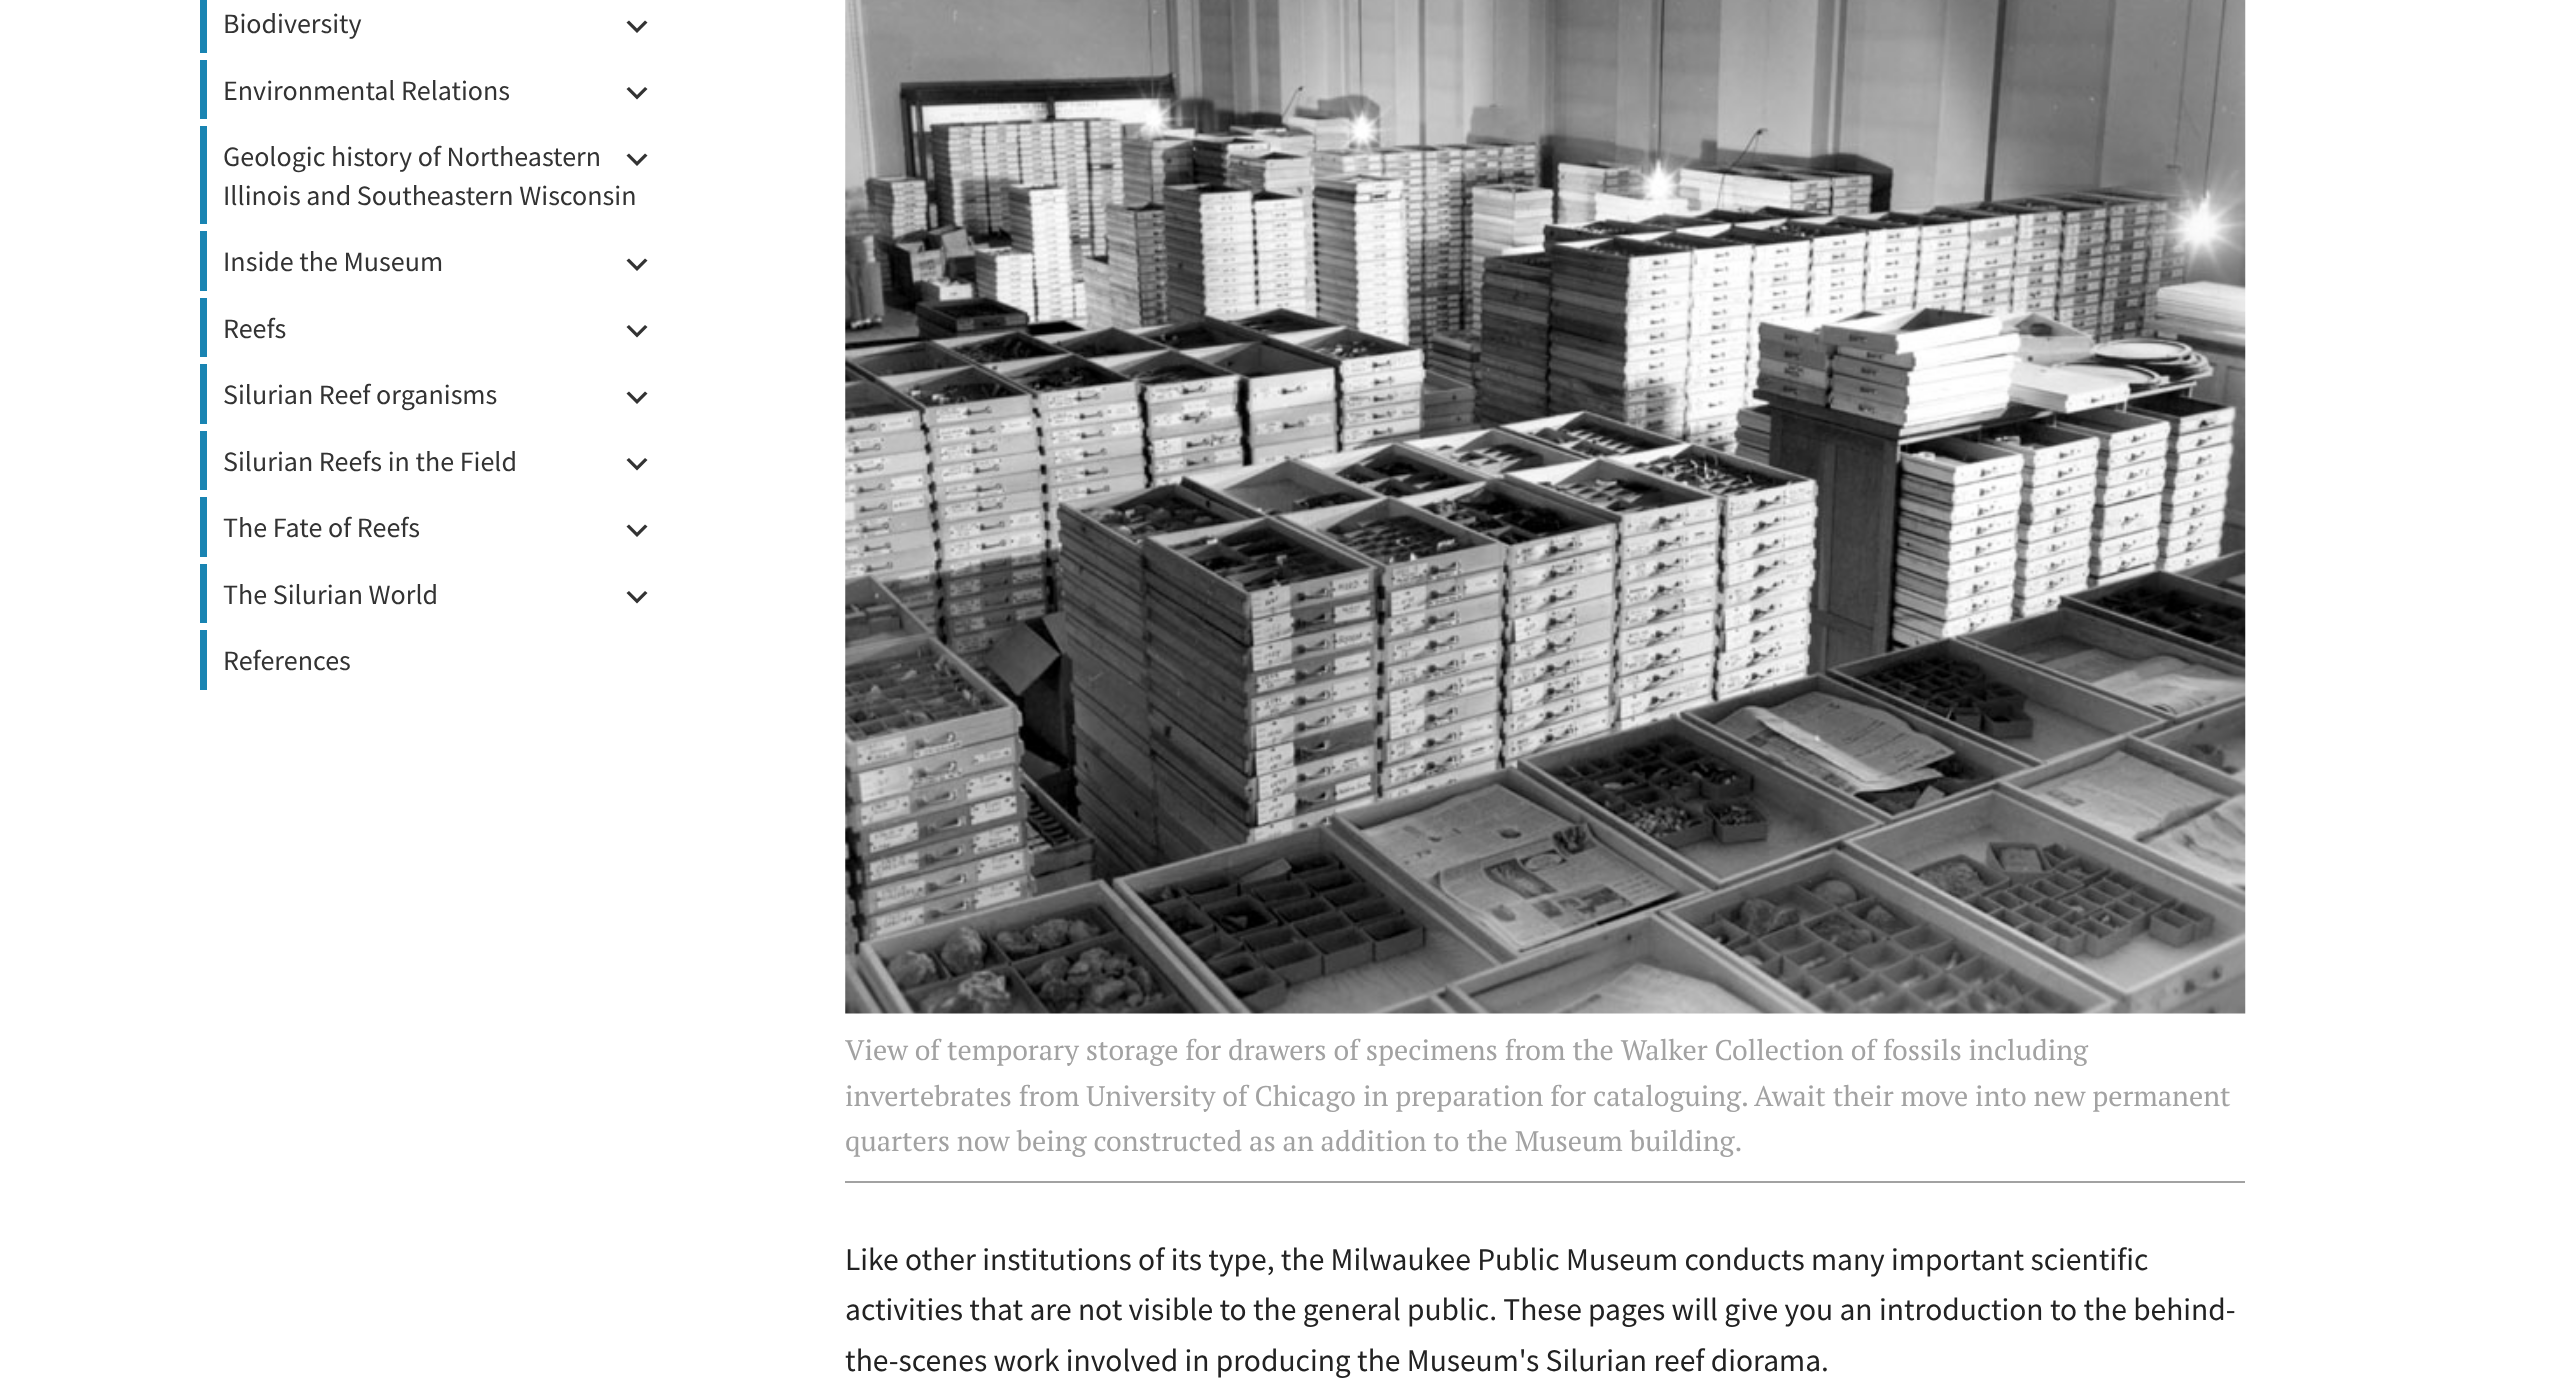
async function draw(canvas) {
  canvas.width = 2560
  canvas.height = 1397
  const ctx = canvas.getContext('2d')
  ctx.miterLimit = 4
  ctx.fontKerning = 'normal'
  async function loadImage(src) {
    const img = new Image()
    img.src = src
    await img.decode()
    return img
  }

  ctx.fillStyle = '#fff'
  ctx.fillRect(0, 0, 2560, 1397)
  ctx.fillStyle = '#1984b2'
  ctx.fillRect(200, 0, 7, 53)
  ctx.font = '28px Source Sans Pro'
  ctx.fillStyle = '#333'
  ctx.fillText('Biodiversity', 223, 33)
  ctx.beginPath()
  ctx.moveTo(629, 20.5)
  ctx.lineTo(637, 28.5)
  ctx.lineTo(645, 20.5)
  ctx.lineTo(647.5, 22.5)
  ctx.lineTo(637, 33)
  ctx.lineTo(626.5, 22.5)
  ctx.closePath()
  ctx.fill()
  ctx.fillStyle = '#1984b2'
  ctx.fillRect(200, 60, 7, 59)
  ctx.fillStyle = '#333'
  ctx.fillText('Environmental Relations', 223, 100)
  ctx.beginPath()
  ctx.moveTo(629, 87)
  ctx.lineTo(637, 95)
  ctx.lineTo(645, 87)
  ctx.lineTo(647.5, 89)
  ctx.lineTo(637, 99.5)
  ctx.lineTo(626.5, 89)
  ctx.closePath()
  ctx.fill()
  ctx.fillStyle = '#1984b2'
  ctx.fillRect(200, 126, 7, 98)
  ctx.fillStyle = '#333'
  ctx.fillText('Geologic history of Northeastern', 223, 166)
  ctx.beginPath()
  ctx.moveTo(629, 153.5)
  ctx.lineTo(637, 161.5)
  ctx.lineTo(645, 153.5)
  ctx.lineTo(647.5, 155.5)
  ctx.lineTo(637, 166)
  ctx.lineTo(626.5, 155.5)
  ctx.closePath()
  ctx.fill()
  ctx.fillText('Illinois and Southeastern Wisconsin', 223, 205)
  ctx.fillStyle = '#1984b2'
  ctx.fillRect(200, 231, 7, 60)
  ctx.fillStyle = '#333'
  ctx.fillText('Inside the Museum', 223, 271)
  ctx.beginPath()
  ctx.moveTo(629, 258.5)
  ctx.lineTo(637, 266.5)
  ctx.lineTo(645, 258.5)
  ctx.lineTo(647.5, 260.5)
  ctx.lineTo(637, 271)
  ctx.lineTo(626.5, 260.5)
  ctx.closePath()
  ctx.fill()
  ctx.fillStyle = '#1984b2'
  ctx.fillRect(200, 298, 7, 59)
  ctx.fillStyle = '#333'
  ctx.fillText('Reefs', 223, 338)
  ctx.beginPath()
  ctx.moveTo(629, 325)
  ctx.lineTo(637, 333)
  ctx.lineTo(645, 325)
  ctx.lineTo(647.5, 327)
  ctx.lineTo(637, 337.5)
  ctx.lineTo(626.5, 327)
  ctx.closePath()
  ctx.fill()
  ctx.fillStyle = '#1984b2'
  ctx.fillRect(200, 364, 7, 60)
  ctx.fillStyle = '#333'
  ctx.fillText('Silurian Reef organisms', 223, 404)
  ctx.beginPath()
  ctx.moveTo(629, 391.5)
  ctx.lineTo(637, 399.5)
  ctx.lineTo(645, 391.5)
  ctx.lineTo(647.5, 393.5)
  ctx.lineTo(637, 404)
  ctx.lineTo(626.5, 393.5)
  ctx.closePath()
  ctx.fill()
  ctx.fillStyle = '#1984b2'
  ctx.fillRect(200, 431, 7, 59)
  ctx.fillStyle = '#333'
  ctx.fillText('Silurian Reefs in the Field', 223, 471)
  ctx.beginPath()
  ctx.moveTo(629, 458)
  ctx.lineTo(637, 466)
  ctx.lineTo(645, 458)
  ctx.lineTo(647.5, 460)
  ctx.lineTo(637, 470.5)
  ctx.lineTo(626.5, 460)
  ctx.closePath()
  ctx.fill()
  ctx.fillStyle = '#1984b2'
  ctx.fillRect(200, 497, 7, 60)
  ctx.fillStyle = '#333'
  ctx.fillText('The Fate of Reefs', 223, 537)
  ctx.beginPath()
  ctx.moveTo(629, 524.5)
  ctx.lineTo(637, 532.5)
  ctx.lineTo(645, 524.5)
  ctx.lineTo(647.5, 526.5)
  ctx.lineTo(637, 537)
  ctx.lineTo(626.5, 526.5)
  ctx.closePath()
  ctx.fill()
  ctx.fillStyle = '#1984b2'
  ctx.fillRect(200, 564, 7, 59)
  ctx.fillStyle = '#333'
  ctx.fillText('The Silurian World', 223, 604)
  ctx.beginPath()
  ctx.moveTo(629, 591)
  ctx.lineTo(637, 599)
  ctx.lineTo(645, 591)
  ctx.lineTo(647.5, 593)
  ctx.lineTo(637, 603.5)
  ctx.lineTo(626.5, 593)
  ctx.closePath()
  ctx.fill()
  ctx.fillStyle = '#1984b2'
  ctx.fillRect(200, 630, 7, 60)
  ctx.fillStyle = '#333'
  ctx.fillText('References', 223, 670)
  ctx.drawImage(await loadImage('image0.png'), 845, 0, 1401, 1014)
  ctx.fillStyle = '#a2a2a2'
  ctx.fillRect(845, 1181, 1400, 2)
  ctx.font = '28.35px PT Serif'
  ctx.fillText('View of temporary storage for drawers of specimens from the Walker Collection of fossils including', 845, 1060)
  ctx.fillText('invertebrates from University of Chicago in preparation for cataloguing. Await their move into new permanent', 845, 1106)
  ctx.fillText('quarters now being constructed as an addition to the Museum building.', 845, 1151)
  ctx.font = '31.5px Source Sans Pro'
  ctx.fillStyle = '#222'
  ctx.fillText('Like other institutions of its type, the Milwaukee Public Museum conducts many important scientific', 845, 1270)
  ctx.fillText('activities that are not visible to the general public. These pages will give you an introduction to the behind-', 845, 1320)
  ctx.fillText('the-scenes work involved in producing the Museum\'s Silurian reef diorama.', 845, 1371)
}

draw(document.querySelector('canvas'))
